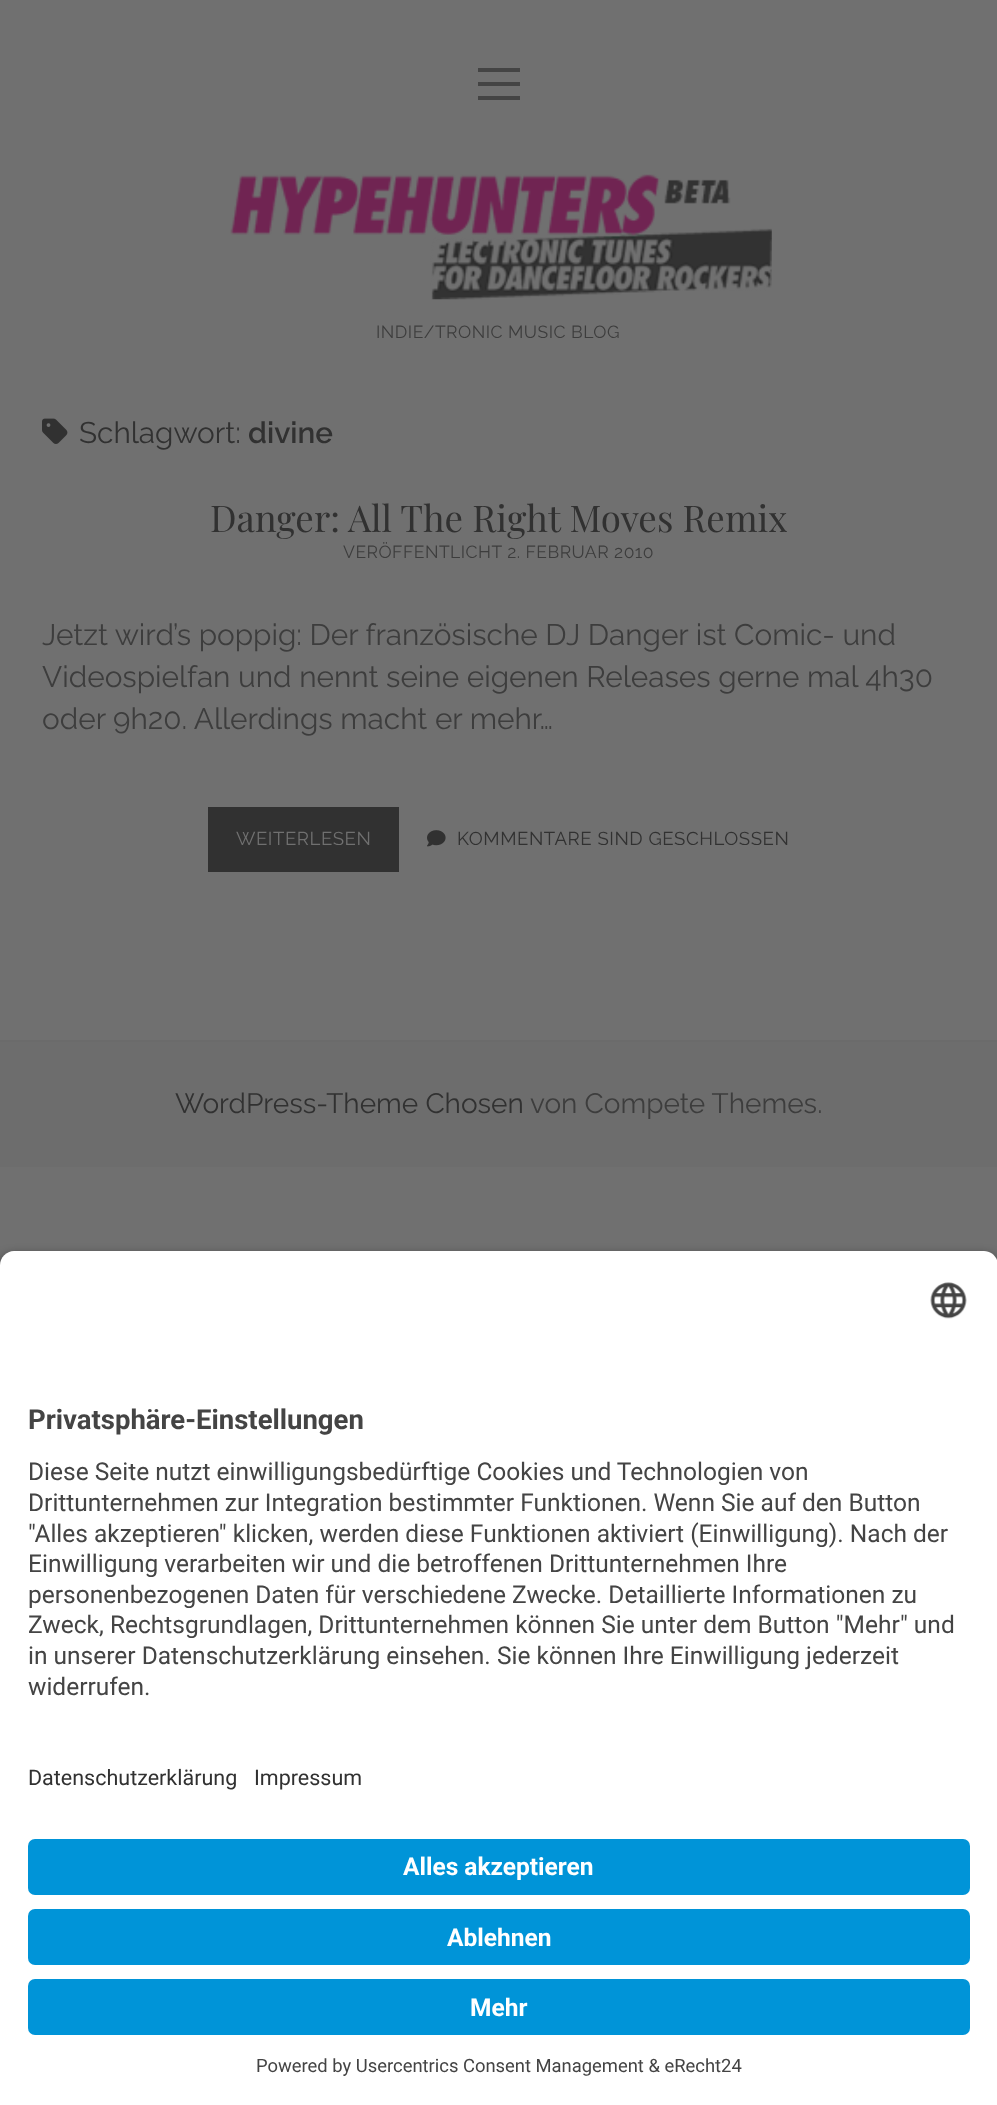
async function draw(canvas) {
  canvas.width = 997
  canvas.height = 2105
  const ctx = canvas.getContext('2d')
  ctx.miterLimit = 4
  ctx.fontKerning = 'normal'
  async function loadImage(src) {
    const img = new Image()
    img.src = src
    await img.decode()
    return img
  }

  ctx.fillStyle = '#707070'
  ctx.fillRect(0, 0, 997, 2105)
  ctx.fillStyle = '#444'
  ctx.fillRect(478, 68, 42, 4)
  ctx.fillRect(478, 82, 42, 4)
  ctx.fillRect(478, 96, 42, 4)
  ctx.drawImage(await loadImage('image0.png'), 230, 174, 542, 126)
  ctx.letterSpacing = '0.5px'
  ctx.font = '17.5px Raleway'
  ctx.fillStyle = '#3d3d3d'
  ctx.fillText('INDIE/TRONIC MUSIC BLOG', 376, 338)
  ctx.drawImage(await loadImage('image1.png'), 42, 418, 26, 26)
  ctx.letterSpacing = '0px'
  ctx.font = '29.75px Raleway'
  ctx.fillStyle = '#313131'
  ctx.fillText('Schlagwort:', 79, 443)
  ctx.font = '600 29.75px Raleway'
  ctx.fillText('divine', 248, 443)
  ctx.font = '36.75px Playfair Display'
  ctx.fillText('Danger: All The Right Moves Remix', 210, 532)
  ctx.letterSpacing = '0.5px'
  ctx.font = '17.5px Raleway'
  ctx.fillStyle = '#3d3d3d'
  ctx.fillText('VERÖFFENTLICHT 2. FEBRUAR 2010', 343, 558)
  ctx.letterSpacing = '0px'
  ctx.font = '29.75px Raleway'
  ctx.fillText('Jetzt wird’s poppig: Der französische DJ Danger ist Comic- und', 42, 645)
  ctx.fillText('Videospielfan und nennt seine eigenen Releases gerne mal 4h30', 42, 687)
  ctx.fillText('oder 9h20. Allerdings macht er mehr…', 42, 729)
  ctx.fillStyle = '#313131'
  ctx.fillRect(208, 807, 191, 65)
  ctx.letterSpacing = '0.55px'
  ctx.font = '18.6px Raleway'
  ctx.fillStyle = '#707070'
  ctx.fillText('WEITERLESEN', 236, 845)
  ctx.drawImage(await loadImage('image2.png'), 427, 830, 19, 17)
  ctx.fillStyle = '#313131'
  ctx.fillText('KOMMENTARE SIND GESCHLOSSEN', 457, 845)
  ctx.fillStyle = '#6d6d6d'
  ctx.fillRect(0, 1042, 997, 125)
  ctx.fillStyle = '#6b6b6b'
  ctx.fillRect(0, 1040, 997, 2)
  ctx.letterSpacing = '0px'
  ctx.font = '28px Raleway'
  ctx.fillStyle = '#313131'
  ctx.fillText('WordPress-Theme Chosen', 175, 1113)
  ctx.fillStyle = '#3d3d3d'
  ctx.fillText('von Compete Themes.', 530, 1113)
  ctx.fillStyle = '#000000cc'
  ctx.filter = 'blur(6px)'
  ctx.beginPath()
  ctx.roundRect(0, 1257, 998, 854, 14)
  ctx.fill()
  ctx.filter = 'none'
  ctx.fillStyle = '#fff'
  ctx.beginPath()
  ctx.moveTo(14, 1251)
  ctx.lineTo(984, 1251)
  ctx.bezierCurveTo(991.5, 1251, 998, 1257.5, 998, 1265)
  ctx.lineTo(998, 1738)
  ctx.lineTo(0, 1738)
  ctx.lineTo(0, 1265)
  ctx.bezierCurveTo(0, 1257.5, 6.5, 1251, 14, 1251)
  ctx.closePath()
  ctx.fill()
  ctx.drawImage(await loadImage('image3.png'), 930, 1282, 37, 37)
  ctx.font = 'bold 27.5px Roboto'
  ctx.fillStyle = '#444'
  ctx.fillText('Privatsphäre-Einstellungen', 28, 1429)
  ctx.font = '24.5px Roboto'
  ctx.fillText('Diese Seite nutzt einwilligungsbedürftige Cookies und Technologien von', 28, 1480)
  ctx.fillText('Drittunternehmen zur Integration bestimmter Funktionen. Wenn Sie auf den Button', 28, 1511)
  ctx.fillText('"Alles akzeptieren" klicken, werden diese Funktionen aktiviert (Einwilligung). Nach der', 28, 1542)
  ctx.fillText('Einwilligung verarbeiten wir und die betroffenen Drittunternehmen Ihre', 28, 1572)
  ctx.fillText('personenbezogenen Daten für verschiedene Zwecke. Detaillierte Informationen zu', 28, 1603)
  ctx.fillText('Zweck, Rechtsgrundlagen, Drittunternehmen können Sie unter dem Button "Mehr" und', 28, 1633)
  ctx.fillText('in unserer Datenschutzerklärung einsehen. Sie können Ihre Einwilligung jederzeit', 28, 1664)
  ctx.fillText('widerrufen.', 28, 1695)
  ctx.fillStyle = '#fff'
  ctx.fillRect(0, 1738, 997, 367)
  ctx.font = '21.5px Roboto'
  ctx.fillStyle = '#313131'
  ctx.fillText('Datenschutzerklärung', 28, 1785)
  ctx.fillText('Impressum', 254, 1785)
  ctx.fillStyle = '#0094d8'
  ctx.beginPath()
  ctx.roundRect(28, 1839, 942, 56, 7)
  ctx.fill()
  ctx.font = 'bold 24.5px Roboto'
  ctx.fillStyle = '#fff'
  ctx.fillText('Alles akzeptieren', 403, 1875)
  ctx.fillStyle = '#0094d8'
  ctx.beginPath()
  ctx.roundRect(28, 1909, 942, 56, 7)
  ctx.fill()
  ctx.fillStyle = '#fff'
  ctx.fillText('Ablehnen', 447, 1946)
  ctx.fillStyle = '#0094d8'
  ctx.beginPath()
  ctx.roundRect(28, 1979, 942, 56, 7)
  ctx.fill()
  ctx.fillStyle = '#fff'
  ctx.fillText('Mehr', 470, 2016)
  ctx.font = '18.4px Roboto'
  ctx.fillStyle = '#444'
  ctx.fillText('Powered by Usercentrics Consent Management & eRecht24', 256, 2072)
}

draw(document.querySelector('canvas'))
